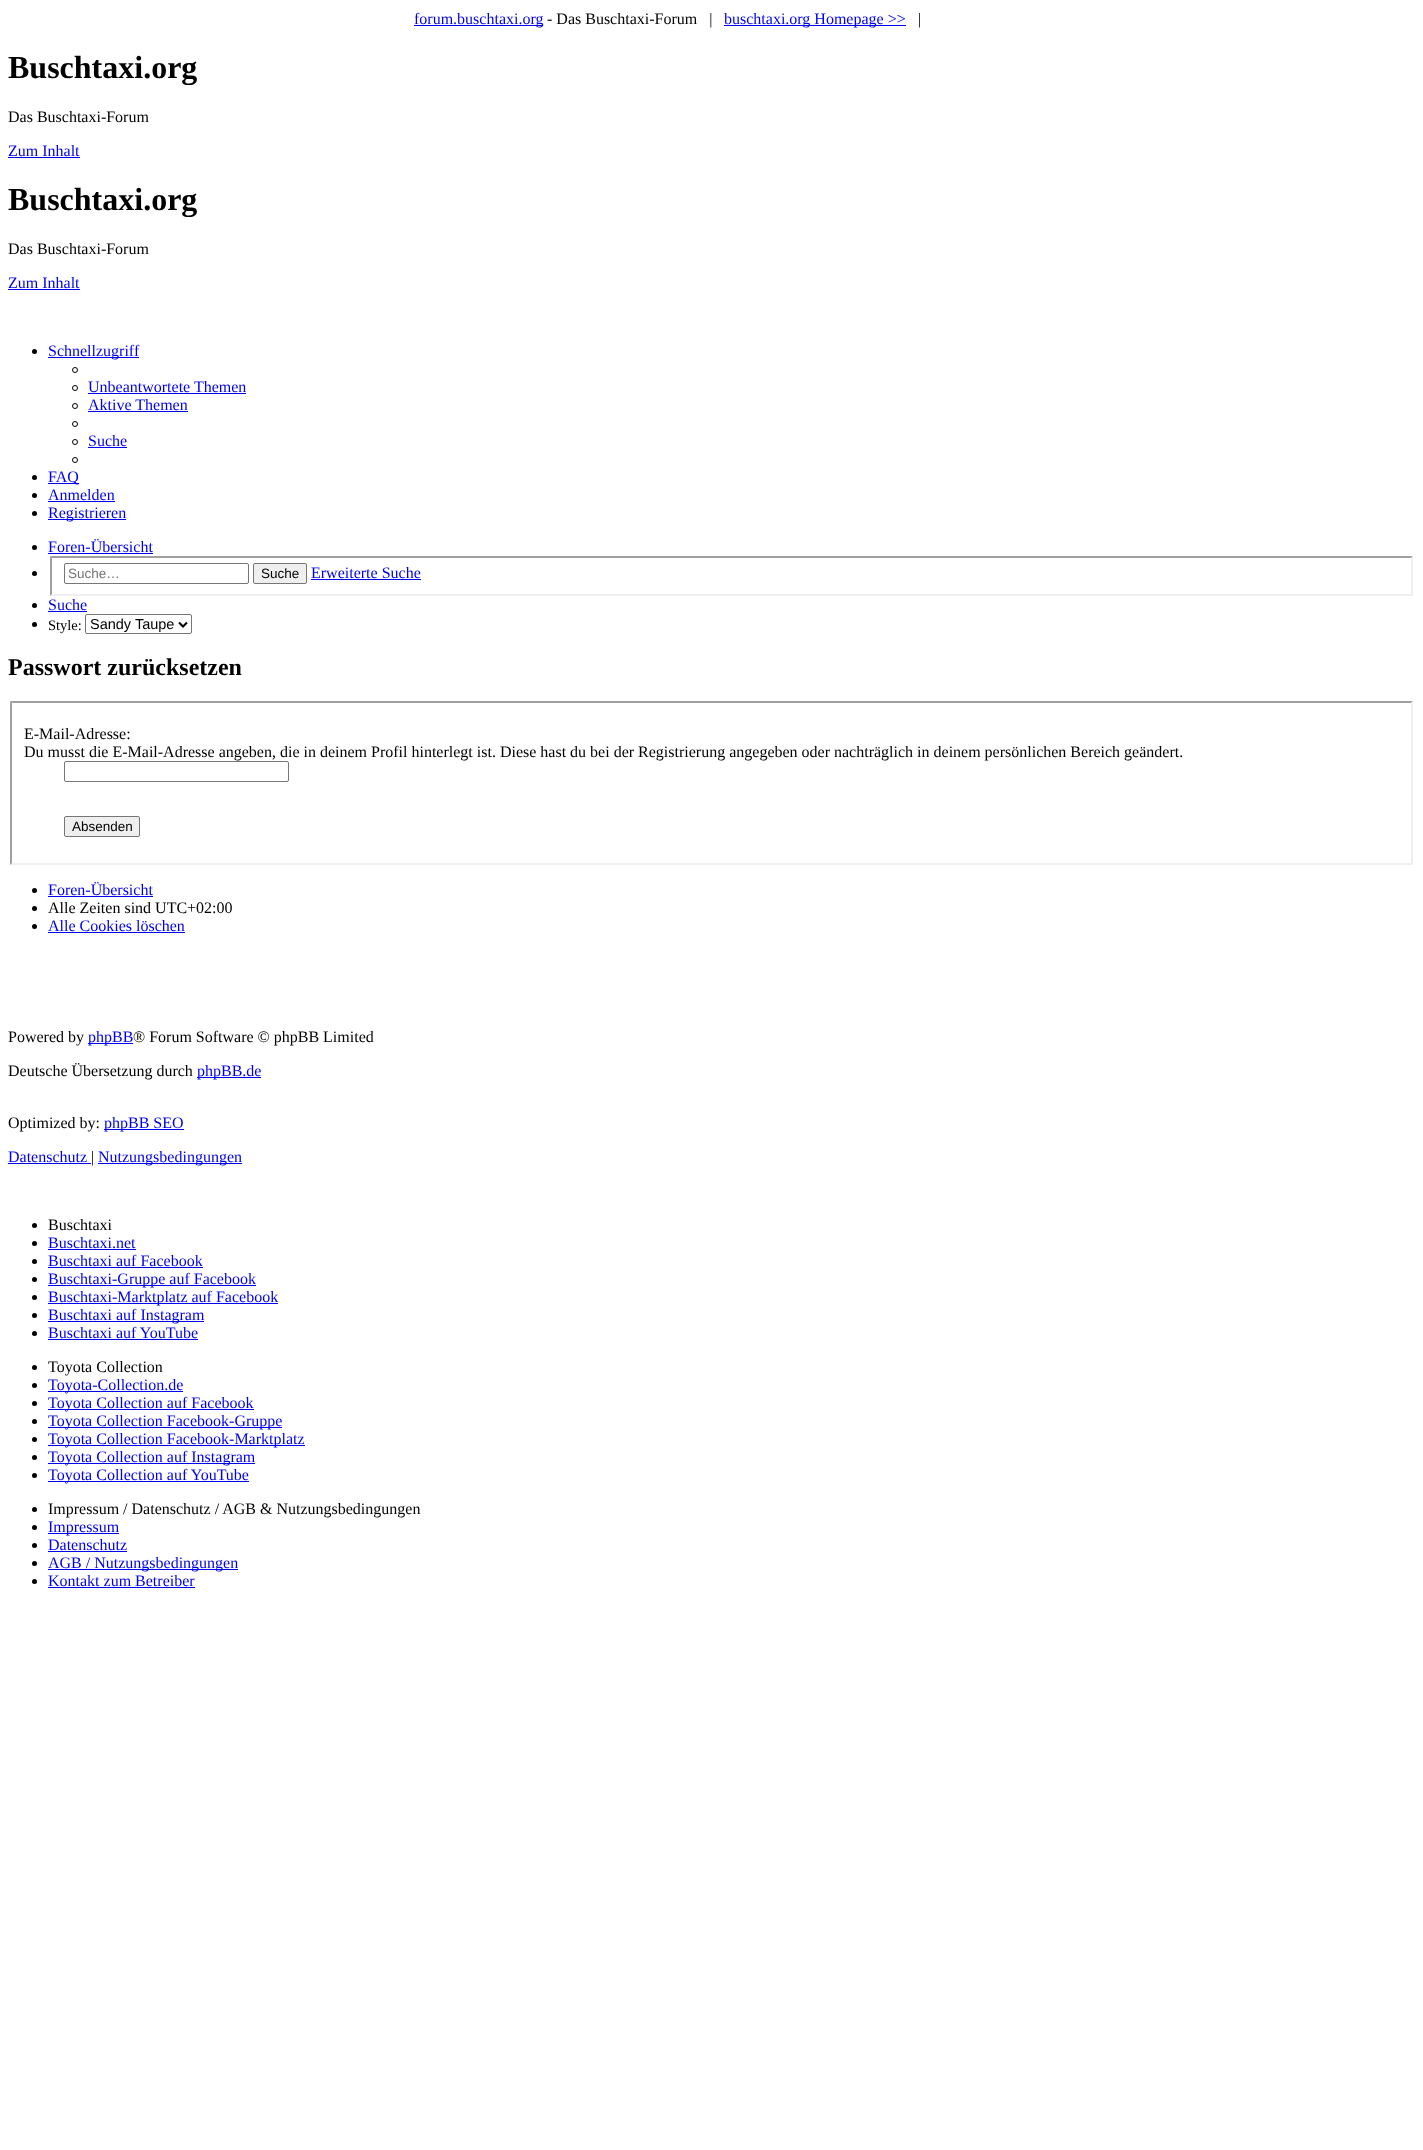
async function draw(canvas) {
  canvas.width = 1423
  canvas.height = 2150
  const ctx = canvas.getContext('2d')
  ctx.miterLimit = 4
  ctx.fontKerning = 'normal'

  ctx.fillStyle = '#fff'
  ctx.fillRect(0, 0, 1423, 2150)
  ctx.fillStyle = '#00e'
  ctx.fillRect(414, 25, 129, 1)
  ctx.font = '16px Liberation Serif'
  ctx.fillText('forum.buschtaxi.org', 414, 24)
  ctx.fillStyle = '#000'
  ctx.fillText('- Das Buschtaxi-Forum   |', 547, 24)
  ctx.fillStyle = '#00e'
  ctx.fillRect(724, 25, 182, 1)
  ctx.fillText('buschtaxi.org Homepage >>', 724, 24)
  ctx.fillStyle = '#000'
  ctx.fillText('|', 918, 24)
  ctx.font = 'bold 32px Liberation Serif'
  ctx.fillText('Buschtaxi.org', 8, 78)
  ctx.font = '16px Liberation Serif'
  ctx.fillText('Das Buschtaxi-Forum', 8, 122)
  ctx.fillStyle = '#00e'
  ctx.fillText('Zum Inhalt', 8, 156)
  ctx.fillRect(8, 157, 72, 1)
  ctx.font = 'bold 32px Liberation Serif'
  ctx.fillStyle = '#000'
  ctx.fillText('Buschtaxi.org', 8, 210)
  ctx.font = '16px Liberation Serif'
  ctx.fillText('Das Buschtaxi-Forum', 8, 254)
  ctx.fillStyle = '#00e'
  ctx.fillText('Zum Inhalt', 8, 288)
  ctx.fillRect(8, 289, 72, 1)
  ctx.fillStyle = '#000'
  ctx.beginPath()
  ctx.arc(34.5, 351.5, 2.5, 0, 2 * Math.PI)
  ctx.fill()
  ctx.fillStyle = '#00e'
  ctx.fillRect(48, 357, 91, 1)
  ctx.fillText('Schnellzugriff', 48, 356)
  ctx.beginPath()
  ctx.arc(75, 370, 2.5, 0, 2 * Math.PI)
  ctx.strokeStyle = '#000'
  ctx.stroke()
  ctx.beginPath()
  ctx.arc(75, 388, 2.5, 0, 2 * Math.PI)
  ctx.stroke()
  ctx.fillText('Unbeantwortete Themen', 88, 392)
  ctx.fillRect(88, 393, 158, 1)
  ctx.beginPath()
  ctx.arc(75, 406, 2.5, 0, 2 * Math.PI)
  ctx.stroke()
  ctx.fillText('Aktive Themen', 88, 410)
  ctx.fillRect(88, 411, 100, 1)
  ctx.beginPath()
  ctx.arc(75, 424, 2.5, 0, 2 * Math.PI)
  ctx.stroke()
  ctx.beginPath()
  ctx.arc(75, 442, 2.5, 0, 2 * Math.PI)
  ctx.stroke()
  ctx.fillText('Suche', 88, 446)
  ctx.fillRect(88, 447, 39, 1)
  ctx.beginPath()
  ctx.arc(75, 460, 2.5, 0, 2 * Math.PI)
  ctx.stroke()
  ctx.fillStyle = '#000'
  ctx.beginPath()
  ctx.arc(34.5, 477.5, 2.5, 0, 2 * Math.PI)
  ctx.fill()
  ctx.fillStyle = '#00e'
  ctx.fillRect(48, 483, 31, 1)
  ctx.fillText('FAQ', 48, 482)
  ctx.fillStyle = '#000'
  ctx.beginPath()
  ctx.arc(34.5, 495.5, 2.5, 0, 2 * Math.PI)
  ctx.fill()
  ctx.fillStyle = '#00e'
  ctx.fillText('Anmelden', 48, 500)
  ctx.fillRect(48, 501, 67, 1)
  ctx.fillStyle = '#000'
  ctx.beginPath()
  ctx.arc(34.5, 513.5, 2.5, 0, 2 * Math.PI)
  ctx.fill()
  ctx.fillStyle = '#00e'
  ctx.fillRect(48, 519, 78, 1)
  ctx.fillText('Registrieren', 48, 518)
  ctx.fillStyle = '#000'
  ctx.beginPath()
  ctx.arc(34.5, 547.5, 2.5, 0, 2 * Math.PI)
  ctx.fill()
  ctx.fillStyle = '#00e'
  ctx.fillText('Foren-Übersicht', 48, 552)
  ctx.fillRect(48, 553, 105, 1)
  ctx.fillStyle = '#000'
  ctx.beginPath()
  ctx.arc(34.5, 573.5, 2.5, 0, 2 * Math.PI)
  ctx.fill()
  ctx.fillStyle = '#9f9f9f'
  ctx.beginPath()
  ctx.moveTo(50, 556)
  ctx.lineTo(1413, 556)
  ctx.lineTo(1411, 558)
  ctx.lineTo(52, 558)
  ctx.closePath()
  ctx.fill()
  ctx.fillStyle = '#efefef'
  ctx.beginPath()
  ctx.moveTo(1413, 556)
  ctx.lineTo(1413, 596)
  ctx.lineTo(1411, 594)
  ctx.lineTo(1411, 558)
  ctx.closePath()
  ctx.fill()
  ctx.beginPath()
  ctx.moveTo(1413, 596)
  ctx.lineTo(50, 596)
  ctx.lineTo(52, 594)
  ctx.lineTo(1411, 594)
  ctx.closePath()
  ctx.fill()
  ctx.fillStyle = '#9f9f9f'
  ctx.beginPath()
  ctx.moveTo(50, 596)
  ctx.lineTo(50, 556)
  ctx.lineTo(52, 558)
  ctx.lineTo(52, 594)
  ctx.closePath()
  ctx.fill()
  ctx.beginPath()
  ctx.roundRect(64.5, 563.5, 184, 20, 1.5)
  ctx.strokeStyle = '#767676'
  ctx.stroke()
  ctx.font = '13.5px Liberation Sans'
  ctx.fillStyle = '#757575'
  ctx.fillText('Suche…', 68, 578)
  ctx.fillStyle = '#efefef'
  ctx.beginPath()
  ctx.roundRect(253.5, 563.5, 53, 20, 1.5)
  ctx.fill()
  ctx.stroke()
  ctx.fillStyle = '#000'
  ctx.fillText('Suche', 261, 578)
  ctx.font = '16px Liberation Serif'
  ctx.fillStyle = '#00e'
  ctx.fillText('Erweiterte Suche', 311, 578)
  ctx.fillRect(311, 579, 110, 1)
  ctx.fillStyle = '#000'
  ctx.beginPath()
  ctx.arc(34.5, 605.5, 2.5, 0, 2 * Math.PI)
  ctx.fill()
  ctx.fillStyle = '#00e'
  ctx.fillText('Suche', 48, 610)
  ctx.fillRect(48, 611, 39, 1)
  ctx.fillStyle = '#000'
  ctx.beginPath()
  ctx.arc(34.5, 624.5, 2.5, 0, 2 * Math.PI)
  ctx.fill()
  ctx.font = '14.5px Liberation Serif'
  ctx.fillText('Style:', 48, 630)
  ctx.beginPath()
  ctx.roundRect(85.5, 614.5, 106, 19, 1.5)
  ctx.stroke()
  ctx.beginPath()
  ctx.moveTo(179, 622.5)
  ctx.lineTo(183, 626.5)
  ctx.lineTo(187, 622.5)
  ctx.strokeStyle = '#000'
  ctx.lineWidth = 2
  ctx.stroke()
  ctx.font = '14.5px Liberation Sans'
  ctx.fillText('Sandy Taupe', 90, 629)
  ctx.font = 'bold 24px Liberation Serif'
  ctx.fillText('Passwort zurücksetzen', 8, 675)
  ctx.fillStyle = '#9f9f9f'
  ctx.beginPath()
  ctx.moveTo(10, 701)
  ctx.lineTo(1413, 701)
  ctx.lineTo(1411, 703)
  ctx.lineTo(12, 703)
  ctx.closePath()
  ctx.fill()
  ctx.fillStyle = '#efefef'
  ctx.beginPath()
  ctx.moveTo(1413, 701)
  ctx.lineTo(1413, 865)
  ctx.lineTo(1411, 863)
  ctx.lineTo(1411, 703)
  ctx.closePath()
  ctx.fill()
  ctx.beginPath()
  ctx.moveTo(1413, 865)
  ctx.lineTo(10, 865)
  ctx.lineTo(12, 863)
  ctx.lineTo(1411, 863)
  ctx.closePath()
  ctx.fill()
  ctx.fillStyle = '#9f9f9f'
  ctx.beginPath()
  ctx.moveTo(10, 865)
  ctx.lineTo(10, 701)
  ctx.lineTo(12, 703)
  ctx.lineTo(12, 863)
  ctx.closePath()
  ctx.fill()
  ctx.font = '16px Liberation Serif'
  ctx.fillStyle = '#000'
  ctx.fillText('E-Mail-Adresse:', 24, 739)
  ctx.fillText('Du musst die E-Mail-Adresse angeben, die in deinem Profil hinterlegt ist. Diese hast du bei der Registrierung angegeben oder nachträglich in deinem persönlichen Bereich geändert.', 24, 757)
  ctx.beginPath()
  ctx.roundRect(64.5, 761.5, 224, 20, 1.5)
  ctx.strokeStyle = '#767676'
  ctx.lineWidth = 1
  ctx.stroke()
  ctx.fillStyle = '#efefef'
  ctx.beginPath()
  ctx.roundRect(64.5, 816.5, 75, 20, 1.5)
  ctx.fill()
  ctx.stroke()
  ctx.font = '13.5px Liberation Sans'
  ctx.fillStyle = '#000'
  ctx.fillText('Absenden', 72, 831)
  ctx.beginPath()
  ctx.arc(34.5, 890.5, 2.5, 0, 2 * Math.PI)
  ctx.fill()
  ctx.font = '16px Liberation Serif'
  ctx.fillStyle = '#00e'
  ctx.fillText('Foren-Übersicht', 48, 895)
  ctx.fillRect(48, 896, 105, 1)
  ctx.fillStyle = '#000'
  ctx.beginPath()
  ctx.arc(34.5, 908.5, 2.5, 0, 2 * Math.PI)
  ctx.fill()
  ctx.fillText('Alle Zeiten sind UTC+02:00', 48, 913)
  ctx.beginPath()
  ctx.arc(34.5, 926.5, 2.5, 0, 2 * Math.PI)
  ctx.fill()
  ctx.fillStyle = '#00e'
  ctx.fillText('Alle Cookies löschen', 48, 931)
  ctx.fillRect(48, 932, 137, 1)
  ctx.fillStyle = '#000'
  ctx.fillText('Powered by', 8, 1042)
  ctx.fillStyle = '#00e'
  ctx.fillRect(88, 1043, 45, 1)
  ctx.fillText('phpBB', 88, 1042)
  ctx.fillStyle = '#000'
  ctx.fillText('® Forum Software © phpBB Limited', 133, 1042)
  ctx.fillText('Deutsche Übersetzung durch', 8, 1076)
  ctx.fillStyle = '#00e'
  ctx.fillRect(197, 1077, 64, 1)
  ctx.fillText('phpBB.de', 197, 1076)
  ctx.fillStyle = '#000'
  ctx.fillText('Optimized by:', 8, 1128)
  ctx.fillStyle = '#00e'
  ctx.fillRect(104, 1129, 80, 1)
  ctx.fillText('phpBB SEO', 104, 1128)
  ctx.fillText('Datenschutz', 8, 1162)
  ctx.fillRect(8, 1163, 83, 1)
  ctx.fillStyle = '#000'
  ctx.fillText('|', 91, 1162)
  ctx.fillStyle = '#00e'
  ctx.fillRect(98, 1163, 144, 1)
  ctx.fillText('Nutzungsbedingungen', 98, 1162)
  ctx.fillStyle = '#000'
  ctx.beginPath()
  ctx.arc(34.5, 1225.5, 2.5, 0, 2 * Math.PI)
  ctx.fill()
  ctx.fillText('Buschtaxi', 48, 1230)
  ctx.beginPath()
  ctx.arc(34.5, 1243.5, 2.5, 0, 2 * Math.PI)
  ctx.fill()
  ctx.fillStyle = '#00e'
  ctx.fillText('Buschtaxi.net', 48, 1248)
  ctx.fillRect(48, 1249, 88, 1)
  ctx.fillStyle = '#000'
  ctx.beginPath()
  ctx.arc(34.5, 1261.5, 2.5, 0, 2 * Math.PI)
  ctx.fill()
  ctx.fillStyle = '#00e'
  ctx.fillText('Buschtaxi auf Facebook', 48, 1266)
  ctx.fillRect(48, 1267, 155, 1)
  ctx.fillStyle = '#000'
  ctx.beginPath()
  ctx.arc(34.5, 1279.5, 2.5, 0, 2 * Math.PI)
  ctx.fill()
  ctx.fillStyle = '#00e'
  ctx.fillRect(48, 1285, 208, 1)
  ctx.fillText('Buschtaxi-Gruppe auf Facebook', 48, 1284)
  ctx.fillStyle = '#000'
  ctx.beginPath()
  ctx.arc(34.5, 1297.5, 2.5, 0, 2 * Math.PI)
  ctx.fill()
  ctx.fillStyle = '#00e'
  ctx.fillRect(48, 1303, 230, 1)
  ctx.fillText('Buschtaxi-Marktplatz auf Facebook', 48, 1302)
  ctx.fillStyle = '#000'
  ctx.beginPath()
  ctx.arc(34.5, 1315.5, 2.5, 0, 2 * Math.PI)
  ctx.fill()
  ctx.fillStyle = '#00e'
  ctx.fillRect(48, 1321, 156, 1)
  ctx.fillText('Buschtaxi auf Instagram', 48, 1320)
  ctx.fillStyle = '#000'
  ctx.beginPath()
  ctx.arc(34.5, 1333.5, 2.5, 0, 2 * Math.PI)
  ctx.fill()
  ctx.fillStyle = '#00e'
  ctx.fillText('Buschtaxi auf YouTube', 48, 1338)
  ctx.fillRect(48, 1339, 150, 1)
  ctx.fillStyle = '#000'
  ctx.beginPath()
  ctx.arc(34.5, 1367.5, 2.5, 0, 2 * Math.PI)
  ctx.fill()
  ctx.fillText('Toyota Collection', 48, 1372)
  ctx.beginPath()
  ctx.arc(34.5, 1385.5, 2.5, 0, 2 * Math.PI)
  ctx.fill()
  ctx.fillStyle = '#00e'
  ctx.fillRect(48, 1391, 135, 1)
  ctx.fillText('Toyota-Collection.de', 48, 1390)
  ctx.fillStyle = '#000'
  ctx.beginPath()
  ctx.arc(34.5, 1403.5, 2.5, 0, 2 * Math.PI)
  ctx.fill()
  ctx.fillStyle = '#00e'
  ctx.fillRect(48, 1409, 206, 1)
  ctx.fillText('Toyota Collection auf Facebook', 48, 1408)
  ctx.fillStyle = '#000'
  ctx.beginPath()
  ctx.arc(34.5, 1421.5, 2.5, 0, 2 * Math.PI)
  ctx.fill()
  ctx.fillStyle = '#00e'
  ctx.fillRect(48, 1427, 234, 1)
  ctx.fillText('Toyota Collection Facebook-Gruppe', 48, 1426)
  ctx.fillStyle = '#000'
  ctx.beginPath()
  ctx.arc(34.5, 1439.5, 2.5, 0, 2 * Math.PI)
  ctx.fill()
  ctx.fillStyle = '#00e'
  ctx.fillRect(48, 1445, 257, 1)
  ctx.fillText('Toyota Collection Facebook-Marktplatz', 48, 1444)
  ctx.fillStyle = '#000'
  ctx.beginPath()
  ctx.arc(34.5, 1457.5, 2.5, 0, 2 * Math.PI)
  ctx.fill()
  ctx.fillStyle = '#00e'
  ctx.fillRect(48, 1463, 207, 1)
  ctx.fillText('Toyota Collection auf Instagram', 48, 1462)
  ctx.fillStyle = '#000'
  ctx.beginPath()
  ctx.arc(34.5, 1475.5, 2.5, 0, 2 * Math.PI)
  ctx.fill()
  ctx.fillStyle = '#00e'
  ctx.fillRect(48, 1481, 201, 1)
  ctx.fillText('Toyota Collection auf YouTube', 48, 1480)
  ctx.fillStyle = '#000'
  ctx.beginPath()
  ctx.arc(34.5, 1509.5, 2.5, 0, 2 * Math.PI)
  ctx.fill()
  ctx.fillText('Impressum / Datenschutz / AGB & Nutzungsbedingungen', 48, 1514)
  ctx.beginPath()
  ctx.arc(34.5, 1527.5, 2.5, 0, 2 * Math.PI)
  ctx.fill()
  ctx.fillStyle = '#00e'
  ctx.fillRect(48, 1533, 71, 1)
  ctx.fillText('Impressum', 48, 1532)
  ctx.fillStyle = '#000'
  ctx.beginPath()
  ctx.arc(34.5, 1545.5, 2.5, 0, 2 * Math.PI)
  ctx.fill()
  ctx.fillStyle = '#00e'
  ctx.fillText('Datenschutz', 48, 1550)
  ctx.fillRect(48, 1551, 79, 1)
  ctx.fillStyle = '#000'
  ctx.beginPath()
  ctx.arc(34.5, 1563.5, 2.5, 0, 2 * Math.PI)
  ctx.fill()
  ctx.fillStyle = '#00e'
  ctx.fillRect(48, 1569, 190, 1)
  ctx.fillText('AGB / Nutzungsbedingungen', 48, 1568)
  ctx.fillStyle = '#000'
  ctx.beginPath()
  ctx.arc(34.5, 1581.5, 2.5, 0, 2 * Math.PI)
  ctx.fill()
  ctx.fillStyle = '#00e'
  ctx.fillText('Kontakt zum Betreiber', 48, 1586)
  ctx.fillRect(48, 1587, 147, 1)
}

draw(document.querySelector('canvas'))
